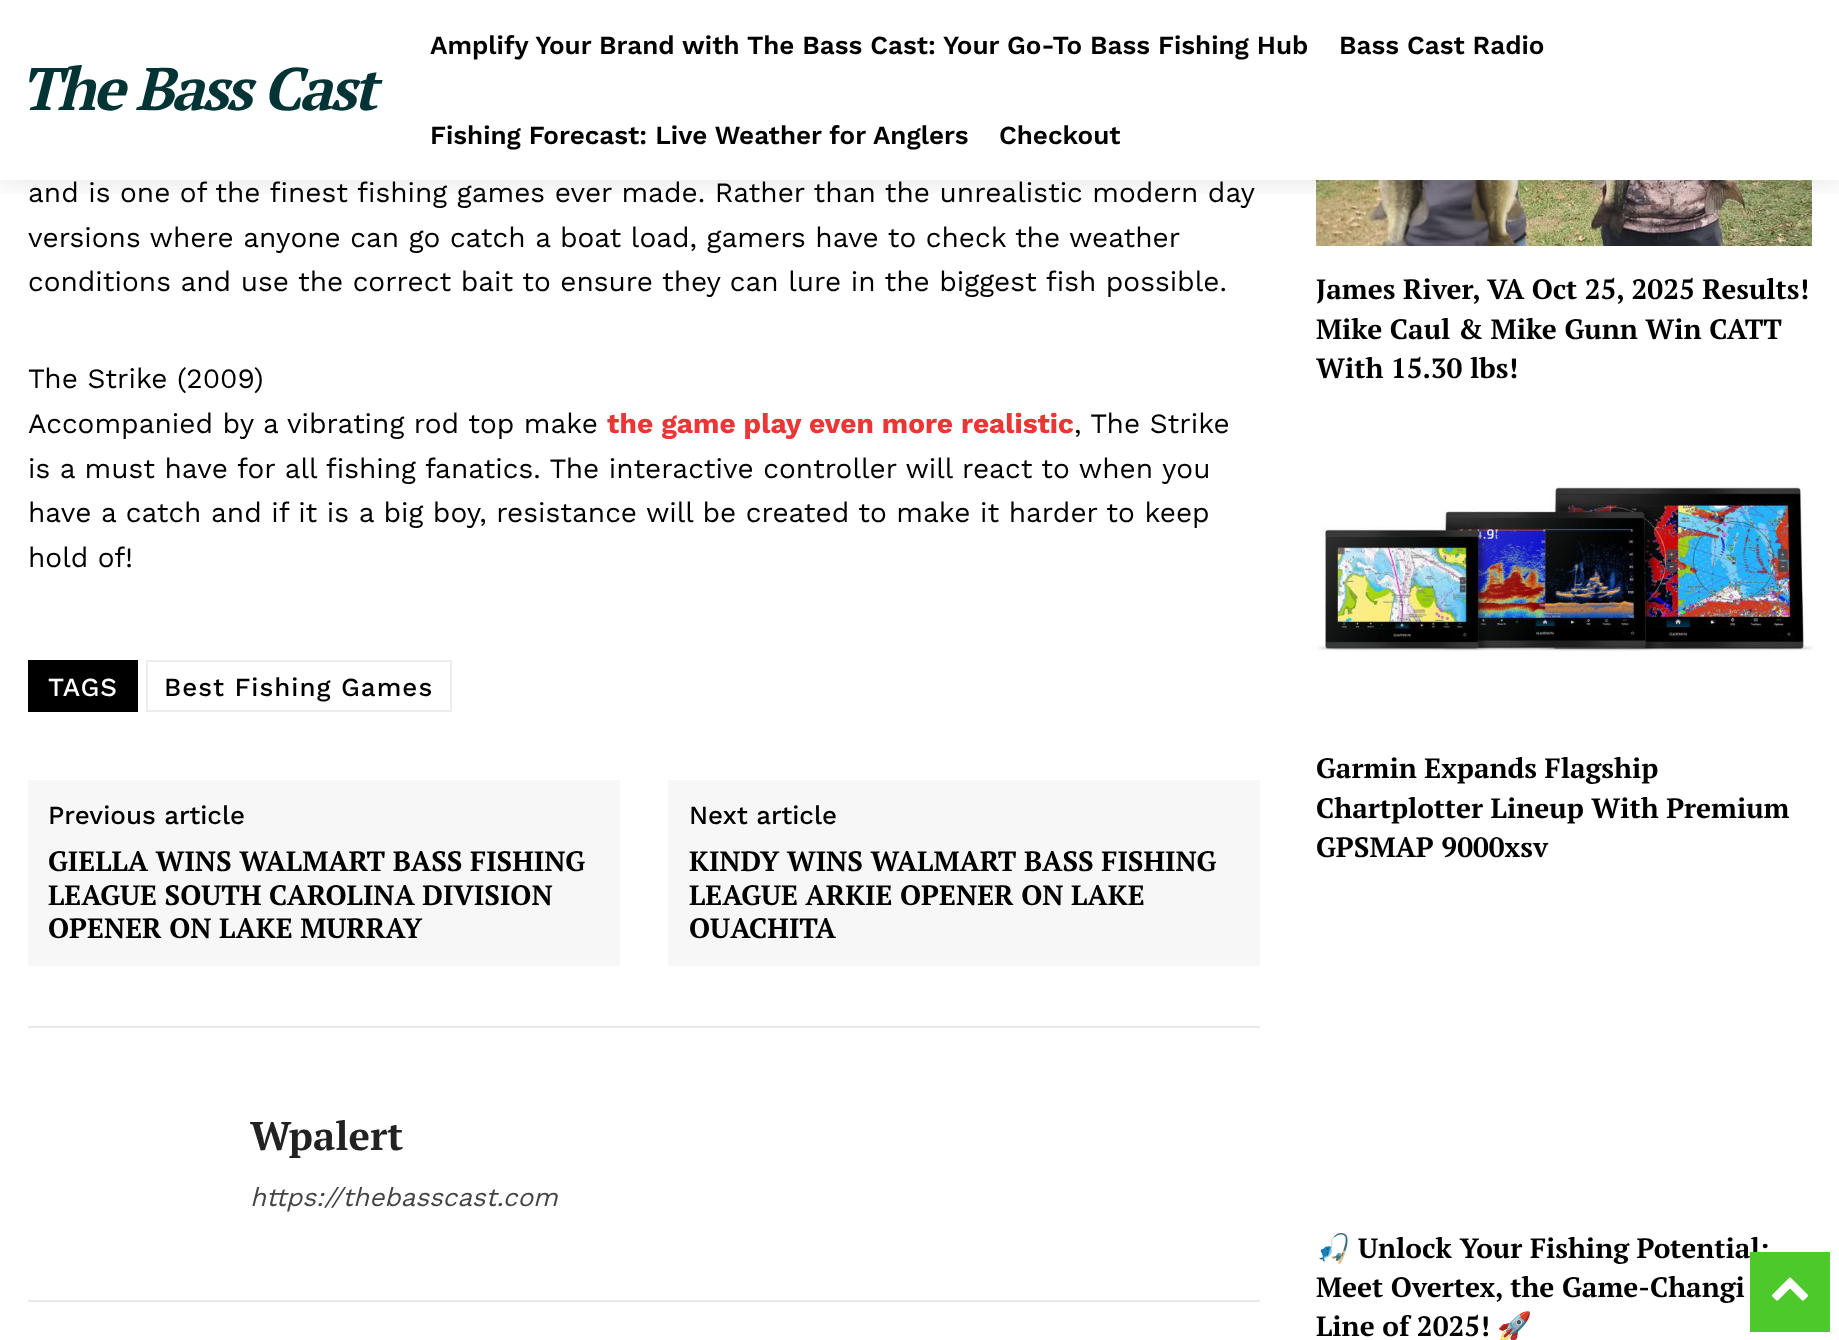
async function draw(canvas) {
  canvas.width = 1839
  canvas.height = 1340
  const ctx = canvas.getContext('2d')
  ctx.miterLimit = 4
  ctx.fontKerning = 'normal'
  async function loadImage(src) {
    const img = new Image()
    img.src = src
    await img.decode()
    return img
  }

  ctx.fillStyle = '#fff'
  ctx.fillRect(0, 0, 1839, 1340)
  ctx.drawImage(await loadImage('image0.png'), 1316, 180, 496, 66)
  ctx.save()
  ctx.beginPath()
  ctx.rect(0, 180, 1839, 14)
  ctx.clip()
  ctx.fillStyle = '#0000001f'
  ctx.filter = 'blur(15px)'
  ctx.beginPath()
  ctx.rect(0, 0, 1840, 180)
  ctx.fill()
  ctx.filter = 'none'
  ctx.restore()
  ctx.letterSpacing = '-3px'
  ctx.font = 'italic bold 60px PT Serif'
  ctx.fillStyle = '#023436'
  ctx.fillText('The Bass Cast', 20, 110)
  ctx.letterSpacing = '0px'
  ctx.font = '600 26px Work Sans'
  ctx.fillStyle = '#000'
  ctx.fillText('Amplify Your Brand with The Bass Cast: Your Go-To Bass Fishing Hub', 430, 54)
  ctx.fillText('Bass Cast Radio', 1339, 54)
  ctx.fillText('Fishing Forecast: Live Weather for Anglers', 430, 144)
  ctx.fillText('Checkout', 999, 144)
  ctx.font = '28px Work Sans'
  ctx.fillText('and is one of the finest fishing games ever made. Rather than the unrealistic modern day', 28, 202)
  ctx.fillText('versions where anyone can go catch a boat load, gamers have to check the weather', 28, 247)
  ctx.fillText('conditions and use the correct bait to ensure they can lure in the biggest fish possible.', 28, 291)
  ctx.fillText('The Strike (2009)', 28, 388)
  ctx.fillText('Accompanied by a vibrating rod top make', 28, 433)
  ctx.font = 'bold 28px Work Sans'
  ctx.fillStyle = '#ec3535'
  ctx.fillText('the game play even more realistic', 607, 433)
  ctx.font = '28px Work Sans'
  ctx.fillStyle = '#000'
  ctx.fillText(', The Strike', 1074, 433)
  ctx.fillText('is a must have for all fishing fanatics. The interactive controller will react to when you', 28, 478)
  ctx.fillText('have a catch and if it is a big boy, resistance will be created to make it harder to keep', 28, 522)
  ctx.fillText('hold of!', 28, 567)
  ctx.fillRect(28, 660, 110, 52)
  ctx.letterSpacing = '1px'
  ctx.font = '500 26px Work Sans'
  ctx.fillStyle = '#fff'
  ctx.fillText('TAGS', 48, 696)
  ctx.strokeStyle = '#ededed'
  ctx.lineWidth = 2
  ctx.strokeRect(147, 661, 304, 50)
  ctx.fillStyle = '#000'
  ctx.fillText('Best Fishing Games', 164, 696)
  ctx.fillStyle = '#f7f7f7'
  ctx.fillRect(28, 780, 592, 186)
  ctx.letterSpacing = '0px'
  ctx.fillStyle = '#000'
  ctx.fillText('Previous article', 48, 824)
  ctx.font = 'bold 28px PT Serif'
  ctx.fillText('GIELLA WINS WALMART BASS FISHING', 48, 871)
  ctx.fillText('LEAGUE SOUTH CAROLINA DIVISION', 48, 905)
  ctx.fillText('OPENER ON LAKE MURRAY', 48, 938)
  ctx.fillStyle = '#f7f7f7'
  ctx.fillRect(668, 780, 592, 186)
  ctx.font = '500 26px Work Sans'
  ctx.fillStyle = '#000'
  ctx.fillText('Next article', 689, 824)
  ctx.font = 'bold 28px PT Serif'
  ctx.fillText('KINDY WINS WALMART BASS FISHING', 689, 871)
  ctx.fillText('LEAGUE ARKIE OPENER ON LAKE', 689, 905)
  ctx.fillText('OUACHITA', 689, 938)
  ctx.fillStyle = '#eaeaea'
  ctx.fillRect(28, 1026, 1232, 2)
  ctx.fillRect(28, 1300, 1232, 2)
  ctx.font = 'bold 40px PT Serif'
  ctx.fillStyle = '#222'
  ctx.fillText('Wpalert', 250, 1150)
  ctx.font = 'italic 26px Work Sans'
  ctx.fillStyle = '#444'
  ctx.fillText('https://thebasscast.com', 250, 1206)
  ctx.font = 'bold 28px PT Serif'
  ctx.fillStyle = '#000'
  ctx.fillText('James River, VA Oct 25, 2025 Results!', 1316, 299)
  ctx.fillText('Mike Caul & Mike Gunn Win CATT', 1316, 339)
  ctx.fillText('With 15.30 lbs!', 1316, 378)
  ctx.drawImage(await loadImage('image1.png'), 1317, 485, 495, 166)
  ctx.fillText('Garmin Expands Flagship', 1316, 778)
  ctx.fillText('Chartplotter Lineup With Premium', 1316, 818)
  ctx.fillText('GPSMAP 9000xsv', 1316, 857)
  ctx.font = 'bold 28px Noto Color Emoji'
  ctx.fillText('🎣', 1316, 1258)
  ctx.font = 'bold 28px PT Serif'
  ctx.fillText('Unlock Your Fishing Potential:', 1358, 1258)
  ctx.fillText('Meet Overtex, the Game-Changi', 1316, 1297)
  ctx.fillText('Line of 2025!', 1316, 1336)
  ctx.font = 'bold 28px Noto Color Emoji'
  ctx.fillText('🚀', 1497, 1336)
  ctx.fillStyle = '#4ec92c'
  ctx.fillRect(1750, 1252, 80, 80)
  ctx.drawImage(await loadImage('image2.png'), 1772, 1277, 36, 24)
}

draw(document.querySelector('canvas'))
